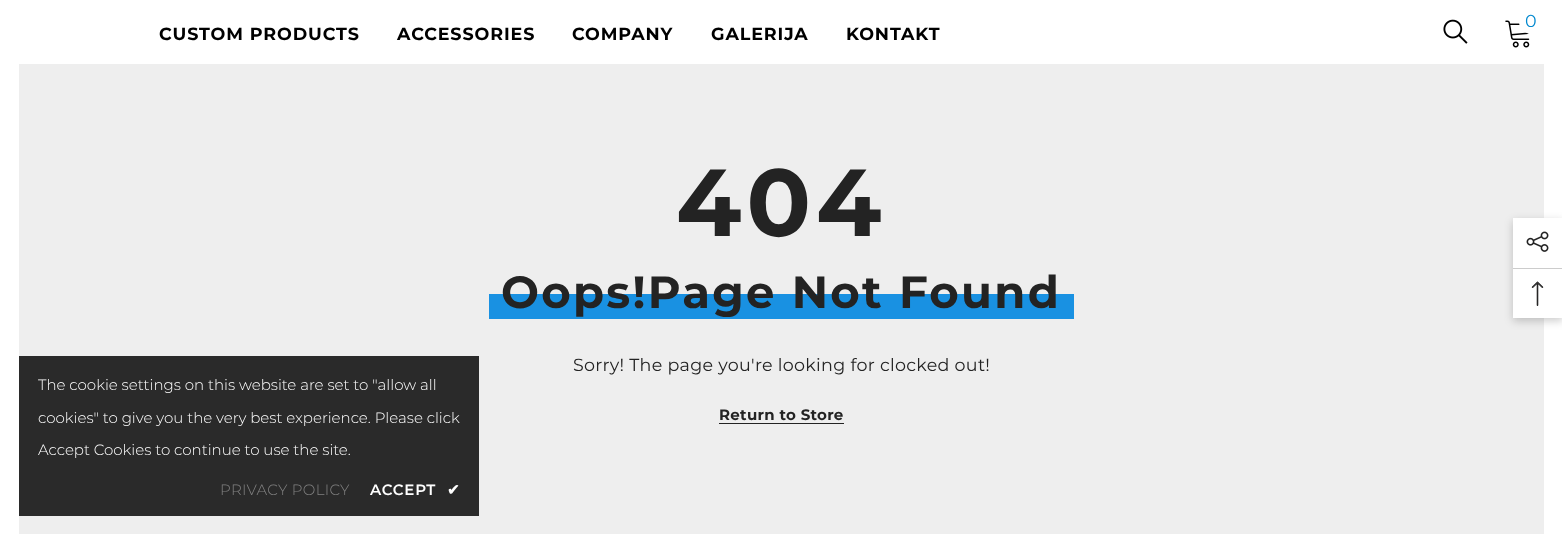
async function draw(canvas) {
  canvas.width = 1562
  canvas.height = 534
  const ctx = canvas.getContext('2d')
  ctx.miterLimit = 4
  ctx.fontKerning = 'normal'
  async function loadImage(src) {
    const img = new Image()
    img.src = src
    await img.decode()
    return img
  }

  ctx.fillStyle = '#fff'
  ctx.fillRect(0, 0, 1562, 534)
  ctx.drawImage(await loadImage('image0.png'), 1443, 19, 25, 25)
  ctx.drawImage(await loadImage('image1.png'), 1505, 20, 25, 28)
  ctx.beginPath()
  ctx.roundRect(1519, 8, 25, 26, 12.5)
  ctx.fill()
  ctx.font = '17.5px Montserrat'
  ctx.fillStyle = '#0088cf'
  ctx.fillText('0', 1525, 27)
  ctx.letterSpacing = '0.9px'
  ctx.font = 'bold 17.5px Montserrat'
  ctx.fillStyle = '#000'
  ctx.fillText('CUSTOM PRODUCTS', 159, 40)
  ctx.fillText('ACCESSORIES', 397, 40)
  ctx.fillText('COMPANY', 572, 40)
  ctx.fillText('GALERIJA', 711, 40)
  ctx.fillText('KONTAKT', 846, 40)
  ctx.fillStyle = '#eee'
  ctx.fillRect(19, 64, 1525, 470)
  ctx.letterSpacing = '5px'
  ctx.font = 'bold 95px Montserrat'
  ctx.fillStyle = '#232323'
  ctx.fillText('404', 676, 236)
  ctx.fillStyle = '#1991e2'
  ctx.fillRect(489, 294, 585, 25)
  ctx.letterSpacing = '2.25px'
  ctx.font = 'bold 45px Montserrat'
  ctx.fillStyle = '#232323'
  ctx.fillText('Oops!Page Not Found', 501, 308)
  ctx.letterSpacing = '0.3px'
  ctx.font = '17.5px Montserrat'
  ctx.fillText('Sorry! The page you\'re looking for clocked out!', 573, 371)
  ctx.font = 'bold 15px Montserrat'
  ctx.fillText('Return to Store', 719, 420)
  ctx.fillRect(719, 423, 125, 1)
  ctx.fillStyle = '#00000033'
  ctx.filter = 'blur(4.5px)'
  ctx.beginPath()
  ctx.rect(1513, 221, 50, 100)
  ctx.fill()
  ctx.filter = 'none'
  ctx.fillStyle = '#fff'
  ctx.fillRect(1513, 218, 49, 100)
  ctx.drawImage(await loadImage('image2.png'), 1526, 231, 23, 21)
  ctx.fillStyle = '#ccc'
  ctx.fillRect(1513, 268, 49, 1)
  ctx.drawImage(await loadImage('image3.png'), 1531, 281, 13, 25)
  ctx.fillStyle = '#2a2a2a'
  ctx.fillRect(19, 356, 460, 160)
  ctx.letterSpacing = '0px'
  ctx.font = '300 15px Montserrat'
  ctx.fillStyle = '#fff'
  ctx.fillText('The cookie settings on this website are set to "allow all', 38, 390)
  ctx.fillText('cookies" to give you the very best experience. Please click', 38, 423)
  ctx.fillText('Accept Cookies to continue to use the site.', 38, 455)
  ctx.letterSpacing = '0.3px'
  ctx.fillStyle = '#818181'
  ctx.fillText('PRIVACY POLICY', 220, 495)
  ctx.letterSpacing = '0.75px'
  ctx.font = '600 15px Montserrat'
  ctx.fillStyle = '#fff'
  ctx.fillText('ACCEPT', 370, 495)
  ctx.font = 'bold 15px DejaVu Sans'
  ctx.fillText('✔', 447, 495)
}

draw(document.querySelector('canvas'))
